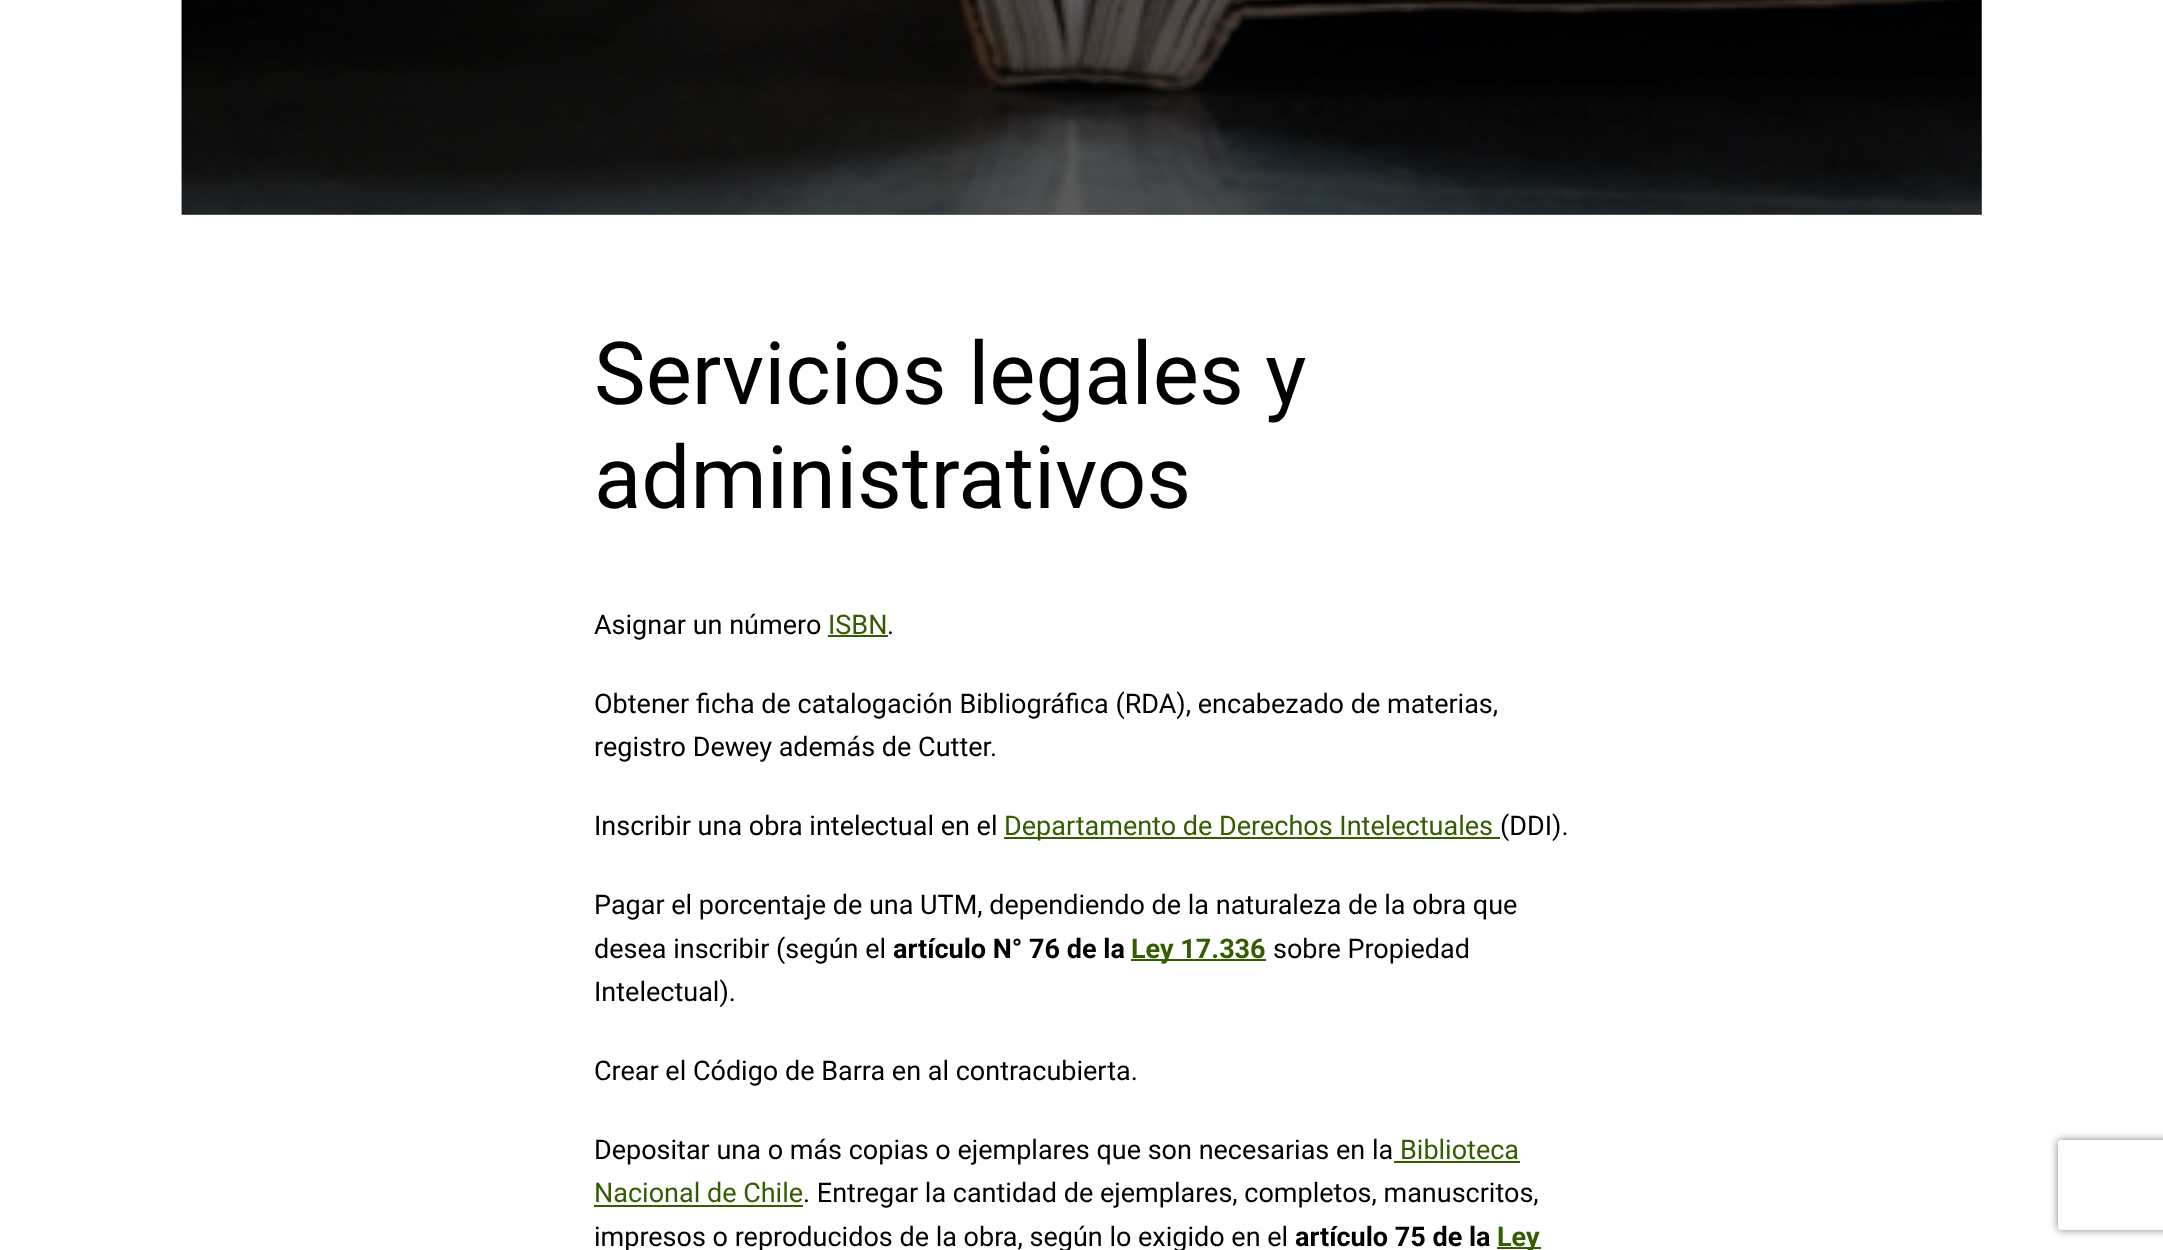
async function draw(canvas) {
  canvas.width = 2163
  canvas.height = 1250
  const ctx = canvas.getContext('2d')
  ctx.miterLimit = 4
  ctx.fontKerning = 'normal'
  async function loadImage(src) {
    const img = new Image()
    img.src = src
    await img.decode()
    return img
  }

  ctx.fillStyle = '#fff'
  ctx.fillRect(0, 0, 2163, 1250)
  ctx.fillStyle = '#808080'
  ctx.fillRect(182, 0, 1800, 215)
  ctx.drawImage(await loadImage('image0.png'), 181, 0, 1801, 215)
  ctx.font = '87px Roboto'
  ctx.fillStyle = '#000'
  ctx.fillText('Servicios legales y', 594, 404)
  ctx.fillText('administrativos', 594, 508)
  ctx.font = '27px Roboto'
  ctx.fillText('Asignar un número', 594, 634)
  ctx.fillStyle = '#345c00'
  ctx.fillText('ISBN', 828, 634)
  ctx.fillRect(828, 635, 60, 2)
  ctx.fillStyle = '#000'
  ctx.fillText('.', 887, 634)
  ctx.fillText('Obtener ficha de catalogación Bibliográfica (RDA), encabezado de materias,', 594, 713)
  ctx.fillText('registro Dewey además de Cutter.', 594, 756)
  ctx.fillText('Inscribir una obra intelectual en el', 594, 835)
  ctx.fillStyle = '#345c00'
  ctx.fillRect(1004, 837, 496, 2)
  ctx.fillText('Departamento de Derechos Intelectuales', 1004, 835)
  ctx.fillStyle = '#000'
  ctx.fillText('(DDI).', 1500, 835)
  ctx.fillText('Pagar el porcentaje de una UTM, dependiendo de la naturaleza de la obra que', 594, 914)
  ctx.fillText('desea inscribir (según el', 594, 958)
  ctx.font = 'bold 27px Roboto'
  ctx.fillText('artículo N° 76 de la', 893, 958)
  ctx.fillStyle = '#345c00'
  ctx.fillRect(1131, 959, 135, 2)
  ctx.fillText('Ley 17.336', 1131, 958)
  ctx.font = '27px Roboto'
  ctx.fillStyle = '#000'
  ctx.fillText('sobre Propiedad', 1273, 958)
  ctx.fillText('Intelectual).', 594, 1001)
  ctx.fillText('Crear el Código de Barra en al contracubierta.', 594, 1080)
  ctx.fillText('Depositar una o más copias o ejemplares que son necesarias en la', 594, 1159)
  ctx.fillStyle = '#345c00'
  ctx.fillText('Biblioteca', 1400, 1159)
  ctx.fillRect(1394, 1161, 126, 2)
  ctx.fillText('Nacional de Chile', 594, 1202)
  ctx.fillRect(594, 1205, 209, 2)
  ctx.fillStyle = '#000'
  ctx.fillText('. Entregar la cantidad de ejemplares, completos, manuscritos,', 803, 1202)
  ctx.fillText('impresos o reproducidos de la obra, según lo exigido en el', 594, 1246)
  ctx.font = 'bold 27px Roboto'
  ctx.fillText('artículo 75 de la', 1295, 1246)
  ctx.fillStyle = '#345c00'
  ctx.fillRect(1497, 1247, 44, 2)
  ctx.fillText('Ley', 1497, 1246)
  ctx.save()
  ctx.beginPath()
  ctx.moveTo(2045, 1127)
  ctx.lineTo(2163, 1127)
  ctx.lineTo(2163, 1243)
  ctx.lineTo(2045, 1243)
  ctx.closePath()
  ctx.moveTo(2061, 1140)
  ctx.lineTo(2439, 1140)
  ctx.bezierCurveTo(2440.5, 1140, 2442, 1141.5, 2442, 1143)
  ctx.lineTo(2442, 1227)
  ctx.bezierCurveTo(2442, 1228.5, 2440.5, 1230, 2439, 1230)
  ctx.lineTo(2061, 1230)
  ctx.bezierCurveTo(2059.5, 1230, 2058, 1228.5, 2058, 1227)
  ctx.lineTo(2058, 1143)
  ctx.bezierCurveTo(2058, 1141.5, 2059.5, 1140, 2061, 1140)
  ctx.closePath()
  ctx.clip('evenodd')
  ctx.fillStyle = '#808080'
  ctx.filter = 'blur(4px)'
  ctx.beginPath()
  ctx.roundRect(2058, 1140, 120, 90, 3)
  ctx.fill()
  ctx.filter = 'none'
  ctx.restore()
}

draw(document.querySelector('canvas'))
